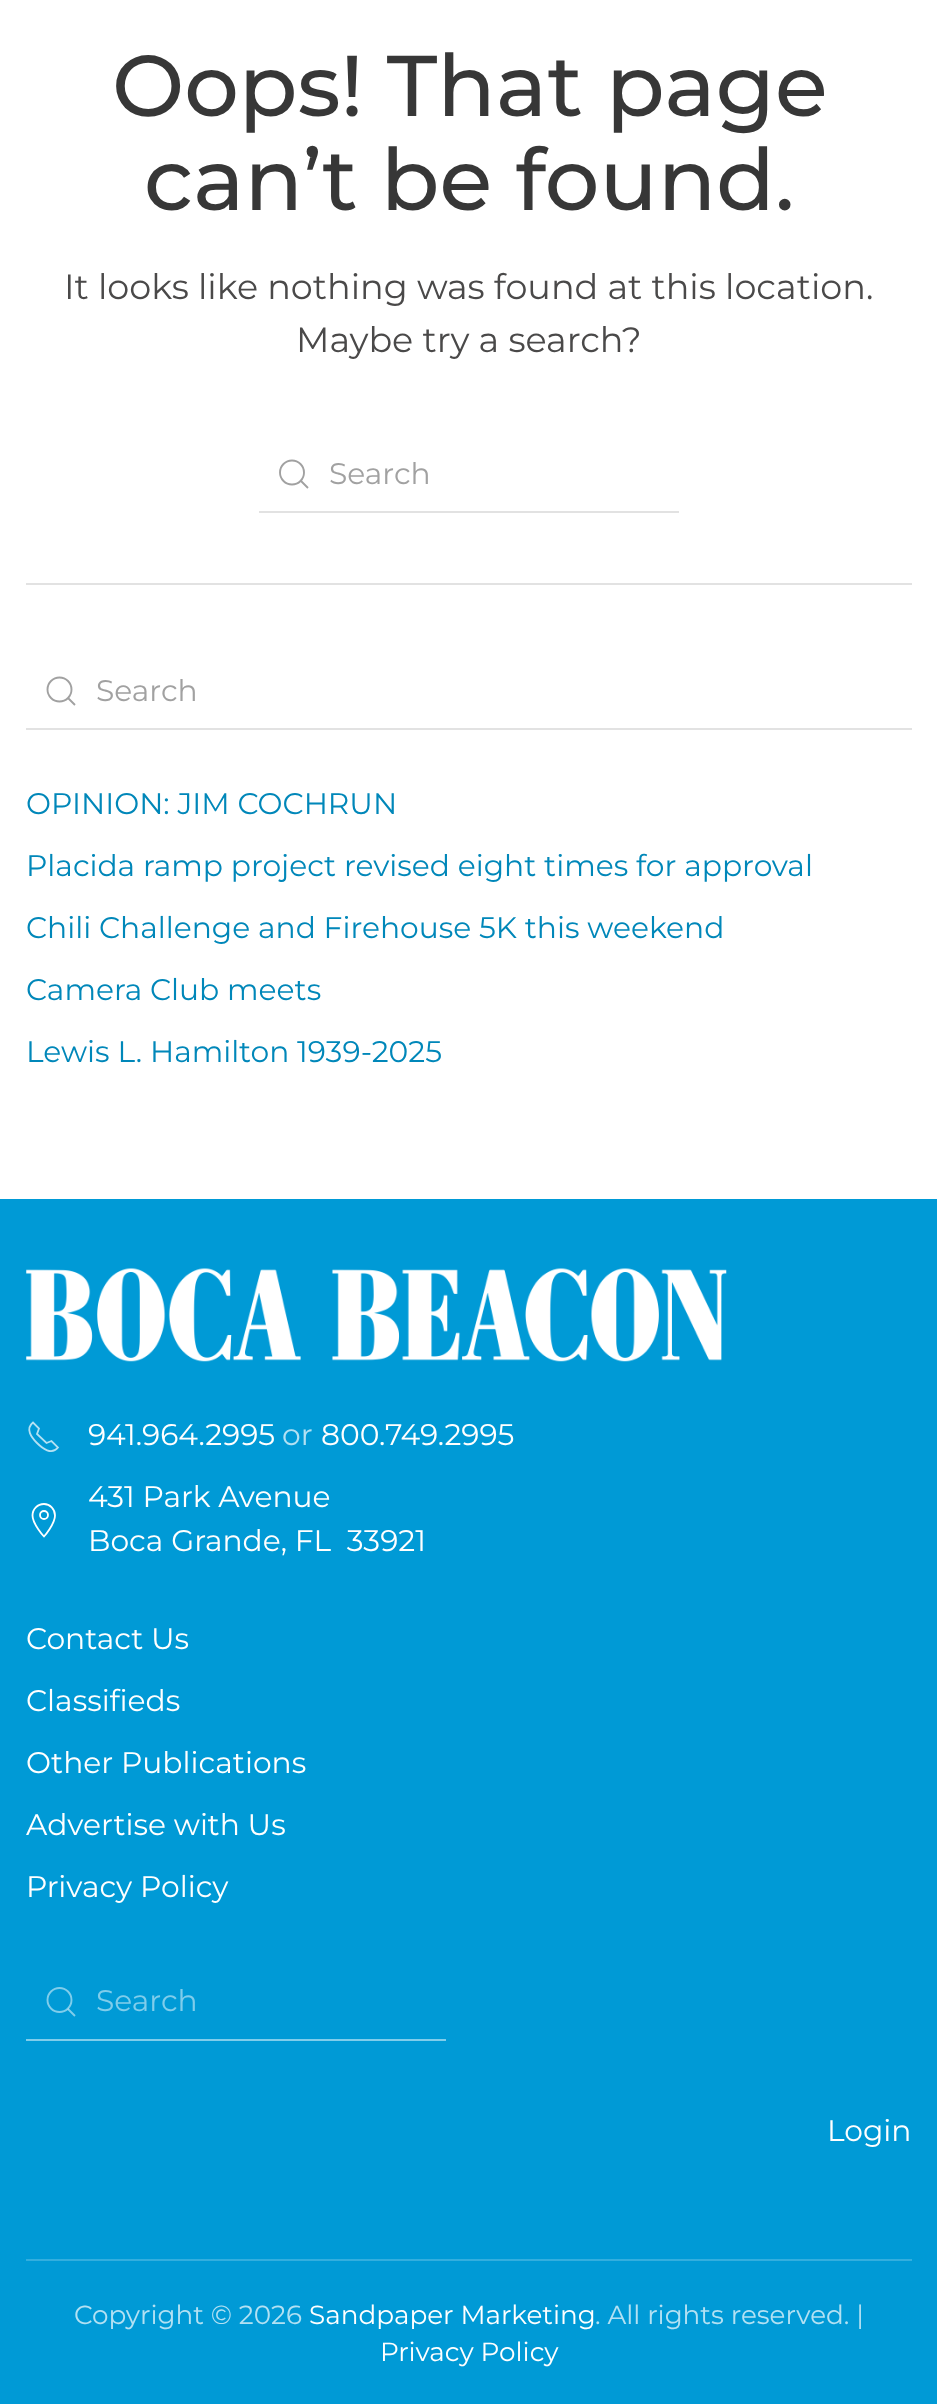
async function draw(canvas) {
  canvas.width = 937
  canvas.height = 2404
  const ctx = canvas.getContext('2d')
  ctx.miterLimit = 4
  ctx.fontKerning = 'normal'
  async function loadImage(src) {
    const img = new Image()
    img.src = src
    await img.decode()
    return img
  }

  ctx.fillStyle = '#fff'
  ctx.fillRect(0, 0, 937, 2404)
  ctx.font = '100 86px Montserrat'
  ctx.fillStyle = '#373737'
  ctx.fillText('Oops! That page', 112, 116)
  ctx.fillText('can’t be found.', 144, 210)
  ctx.font = '100 35px "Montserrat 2"'
  ctx.fillStyle = '#4a4949'
  ctx.fillText('It looks like nothing was found at this location.', 64, 299)
  ctx.fillText('Maybe try a search?', 296, 352)
  ctx.beginPath()
  ctx.arc(292, 472.5, 12, 0, 2 * Math.PI)
  ctx.strokeStyle = '#a1a1a1'
  ctx.lineWidth = 1.9
  ctx.stroke()
  ctx.beginPath()
  ctx.moveTo(301, 481)
  ctx.lineTo(308, 488)
  ctx.closePath()
  ctx.stroke()
  ctx.fillStyle = '#e2e2e2'
  ctx.fillRect(259, 511, 420, 2)
  ctx.font = '100 29.75px "Montserrat 2"'
  ctx.fillStyle = '#a1a1a1'
  ctx.fillText('Search', 329, 484)
  ctx.fillStyle = '#e2e2e2'
  ctx.fillRect(26, 583, 886, 2)
  ctx.beginPath()
  ctx.arc(59.5, 689.5, 12, 0, 2 * Math.PI)
  ctx.stroke()
  ctx.beginPath()
  ctx.moveTo(68, 698)
  ctx.lineTo(75, 705)
  ctx.closePath()
  ctx.stroke()
  ctx.fillRect(26, 728, 886, 2)
  ctx.fillStyle = '#a1a1a1'
  ctx.fillText('Search', 96, 701)
  ctx.fillStyle = '#0087b9'
  ctx.fillText('OPINION: JIM COCHRUN', 26, 814)
  ctx.fillText('Placida ramp project revised eight times for approval', 26, 876)
  ctx.fillText('Chili Challenge and Firehouse 5K this weekend', 26, 938)
  ctx.fillText('Camera Club meets', 26, 1000)
  ctx.fillText('Lewis L. Hamilton 1939-2025', 26, 1062)
  ctx.fillStyle = '#009ad6'
  ctx.fillRect(0, 1199, 937, 1205)
  ctx.drawImage(await loadImage('image0.png'), 26, 1268, 701, 94)
  ctx.beginPath()
  ctx.moveTo(37, 1443)
  ctx.bezierCurveTo(42.5, 1448.5, 51.5, 1455.5, 58, 1447.5)
  ctx.lineTo(51.5, 1441)
  ctx.lineTo(46.5, 1443)
  ctx.lineTo(37, 1434)
  ctx.lineTo(39, 1428.5)
  ctx.lineTo(33, 1422.5)
  ctx.bezierCurveTo(25, 1429, 31.5, 1437.5, 37, 1443)
  ctx.strokeStyle = '#b3e1f3'
  ctx.lineWidth = 1.8
  ctx.stroke()
  ctx.fillStyle = '#fff'
  ctx.fillText('941.964.2995', 88, 1445)
  ctx.fillStyle = '#b3e1f3'
  ctx.fillText('or', 282, 1445)
  ctx.fillStyle = '#fff'
  ctx.fillText('800.749.2995', 321, 1445)
  ctx.beginPath()
  ctx.moveTo(44, 1504)
  ctx.bezierCurveTo(37.5, 1504, 32.5, 1509, 32.5, 1515.5)
  ctx.bezierCurveTo(32.5, 1524, 44, 1536.5, 44, 1536.5)
  ctx.bezierCurveTo(44, 1536.5, 55, 1524, 55, 1515.5)
  ctx.bezierCurveTo(55, 1509, 50, 1504, 44, 1504)
  ctx.closePath()
  ctx.strokeStyle = '#fff'
  ctx.stroke()
  ctx.beginPath()
  ctx.arc(44, 1515, 4, 0, 2 * Math.PI)
  ctx.stroke()
  ctx.fillText('431 Park Avenue', 88, 1507)
  ctx.fillText('Boca Grande, FL  33921', 88, 1551)
  ctx.fillText('Contact Us', 26, 1649)
  ctx.fillText('Classifieds', 26, 1711)
  ctx.fillText('Other Publications', 26, 1773)
  ctx.fillText('Advertise with Us', 26, 1835)
  ctx.fillText('Privacy Policy', 26, 1897)
  ctx.beginPath()
  ctx.arc(59.5, 2000, 12, 0, 2 * Math.PI)
  ctx.strokeStyle = '#80cdeb'
  ctx.lineWidth = 1.9
  ctx.stroke()
  ctx.beginPath()
  ctx.moveTo(68, 2009)
  ctx.lineTo(75, 2016)
  ctx.closePath()
  ctx.strokeStyle = '#ffffff80'
  ctx.stroke()
  ctx.fillStyle = '#80cdeb'
  ctx.fillRect(26, 2039, 420, 2)
  ctx.fillText('Search', 96, 2011)
  ctx.fillStyle = '#fff'
  ctx.fillText('Login', 827, 2141)
  ctx.fillStyle = '#33aede'
  ctx.fillRect(26, 2259, 886, 2)
  ctx.font = '100 26.25px "Montserrat 2"'
  ctx.fillStyle = '#b3e1f3'
  ctx.fillText('Copyright © 2026', 74, 2324)
  ctx.fillStyle = '#fff'
  ctx.fillText('Sandpaper Marketing', 309, 2324)
  ctx.fillStyle = '#b3e1f3'
  ctx.fillText('. All rights reserved. |', 595, 2324)
  ctx.fillStyle = '#fff'
  ctx.fillText('Privacy Policy', 380, 2361)
}

draw(document.querySelector('canvas'))
